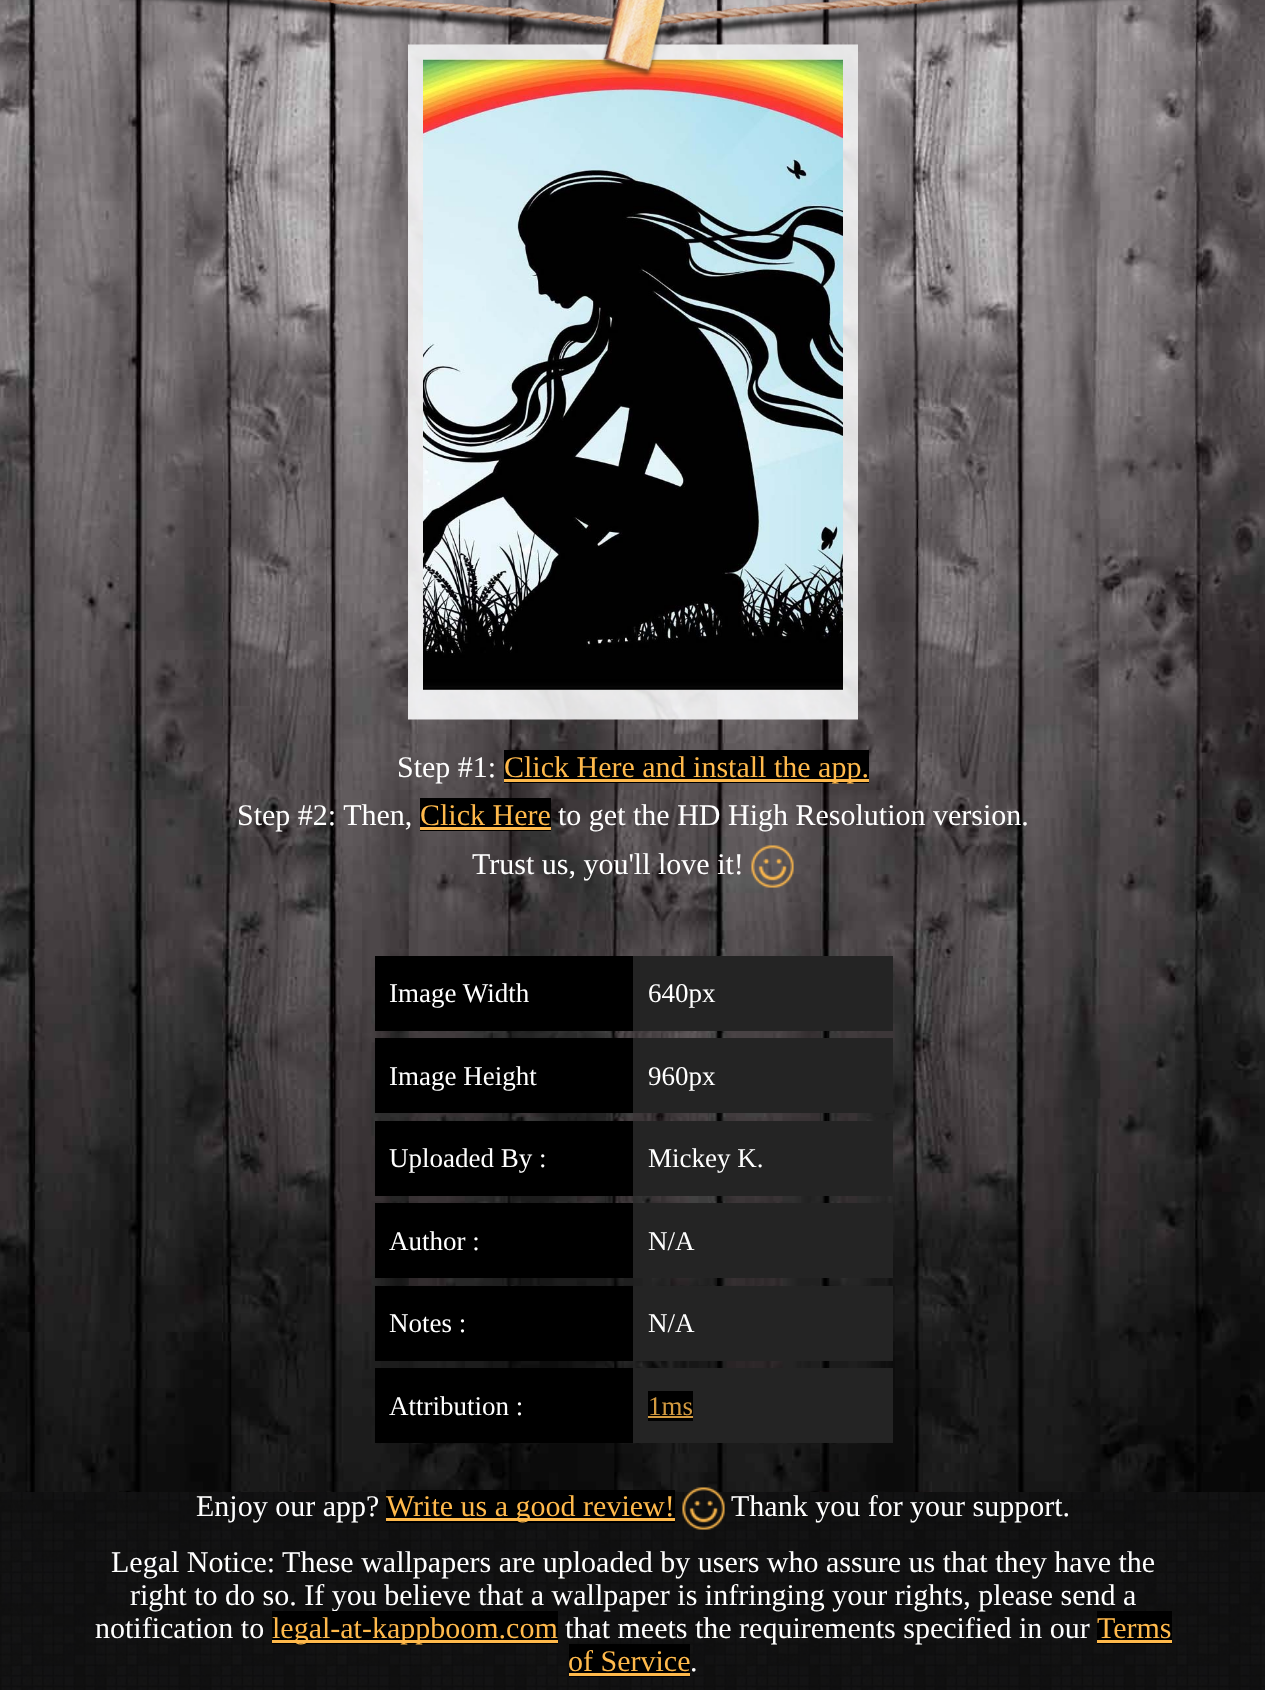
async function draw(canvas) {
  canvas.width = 1265
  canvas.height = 1690
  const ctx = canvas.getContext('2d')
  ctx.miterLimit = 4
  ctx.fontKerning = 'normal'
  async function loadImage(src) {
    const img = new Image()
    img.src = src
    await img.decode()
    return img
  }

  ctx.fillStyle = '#fff'
  ctx.fillRect(0, 0, 1265, 1690)
  ctx.drawImage(await loadImage('image0.png'), 0, 1492, 1265, 198)
  ctx.drawImage(await loadImage('image1.png'), 0, 0, 1265, 1492)
  ctx.drawImage(await loadImage('image3.png'), 408, 44, 450, 676)
  ctx.fillStyle = '#000'
  ctx.fillRect(423, 689, 420, 1)
  ctx.drawImage(await loadImage('image4.png'), 423, 59, 420, 631)
  ctx.drawImage(await loadImage('image2.png'), 120, 0, 1028, 77)
  ctx.font = '30px Liberation Serif'
  ctx.fillStyle = '#fff'
  ctx.fillText('Step #1:', 397, 777)
  ctx.fillStyle = '#000'
  ctx.fillRect(504, 750, 365, 33)
  ctx.fillStyle = '#ffb94b'
  ctx.fillRect(504, 779, 365, 3)
  ctx.fillText('Click Here and install the app.', 504, 777)
  ctx.fillStyle = '#fff'
  ctx.fillText('Step #2: Then,', 237, 825)
  ctx.fillStyle = '#000'
  ctx.fillRect(420, 798, 131, 33)
  ctx.fillStyle = '#ffb94b'
  ctx.fillText('Click Here', 420, 825)
  ctx.fillRect(420, 827, 131, 3)
  ctx.fillStyle = '#fff'
  ctx.fillText('to get the HD High Resolution version.', 558, 825)
  ctx.fillText('Trust us, you\'ll love it!', 472, 874)
  ctx.drawImage(await loadImage('image5.png'), 751, 845, 43, 43)
  ctx.fillStyle = '#242424'
  ctx.fillRect(633, 956, 260, 75)
  ctx.fillStyle = '#000'
  ctx.fillRect(375, 956, 258, 75)
  ctx.font = '27px Liberation Serif'
  ctx.fillStyle = '#fff'
  ctx.fillText('Image Width', 389, 1002)
  ctx.fillText('640px', 648, 1002)
  ctx.fillStyle = '#242424'
  ctx.fillRect(633, 1038, 260, 75)
  ctx.fillStyle = '#000'
  ctx.fillRect(375, 1038, 258, 75)
  ctx.fillStyle = '#fff'
  ctx.fillText('Image Height', 389, 1085)
  ctx.fillText('960px', 648, 1085)
  ctx.fillStyle = '#242424'
  ctx.fillRect(633, 1121, 260, 75)
  ctx.fillStyle = '#000'
  ctx.fillRect(375, 1121, 258, 75)
  ctx.fillStyle = '#fff'
  ctx.fillText('Uploaded By :', 389, 1167)
  ctx.fillText('Mickey K.', 648, 1167)
  ctx.fillStyle = '#242424'
  ctx.fillRect(633, 1203, 260, 75)
  ctx.fillStyle = '#000'
  ctx.fillRect(375, 1203, 258, 75)
  ctx.fillStyle = '#fff'
  ctx.fillText('Author :', 389, 1250)
  ctx.fillText('N/A', 648, 1250)
  ctx.fillStyle = '#242424'
  ctx.fillRect(633, 1286, 260, 75)
  ctx.fillStyle = '#000'
  ctx.fillRect(375, 1286, 258, 75)
  ctx.fillStyle = '#fff'
  ctx.fillText('Notes :', 389, 1332)
  ctx.fillText('N/A', 648, 1332)
  ctx.fillStyle = '#242424'
  ctx.fillRect(633, 1368, 260, 75)
  ctx.fillStyle = '#000'
  ctx.fillRect(375, 1368, 258, 75)
  ctx.fillStyle = '#fff'
  ctx.fillText('Attribution :', 389, 1415)
  ctx.fillStyle = '#000'
  ctx.fillRect(648, 1391, 45, 30)
  ctx.fillStyle = '#d39a40'
  ctx.fillText('1ms', 648, 1415)
  ctx.fillRect(648, 1416, 45, 2)
  ctx.font = '30px Liberation Serif'
  ctx.fillStyle = '#fff'
  ctx.fillText('Enjoy our app?', 196, 1516)
  ctx.fillStyle = '#000'
  ctx.fillRect(386, 1490, 289, 33)
  ctx.fillStyle = '#ffb94b'
  ctx.fillRect(386, 1518, 289, 3)
  ctx.fillText('Write us a good review!', 386, 1516)
  ctx.drawImage(await loadImage('image6.png'), 682, 1487, 43, 43)
  ctx.fillStyle = '#fff'
  ctx.fillText('Thank you for your support.', 731, 1516)
  ctx.fillText('Legal Notice: These wallpapers are uploaded by users who assure us that they have the', 111, 1572)
  ctx.fillText('right to do so. If you believe that a wallpaper is infringing your rights, please send a', 130, 1605)
  ctx.fillText('notification to', 95, 1638)
  ctx.fillStyle = '#000'
  ctx.fillRect(272, 1611, 286, 33)
  ctx.fillStyle = '#ffb94b'
  ctx.fillRect(272, 1640, 286, 3)
  ctx.fillText('legal-at-kappboom.com', 272, 1638)
  ctx.fillStyle = '#fff'
  ctx.fillText('that meets the requirements specified in our', 565, 1638)
  ctx.fillStyle = '#000'
  ctx.fillRect(1097, 1611, 75, 33)
  ctx.fillStyle = '#ffb94b'
  ctx.fillText('Terms', 1097, 1638)
  ctx.fillRect(1097, 1640, 75, 3)
  ctx.fillStyle = '#000'
  ctx.fillRect(569, 1644, 121, 33)
  ctx.fillStyle = '#ffb94b'
  ctx.fillText('of Service', 568, 1671)
  ctx.fillRect(569, 1673, 121, 3)
  ctx.fillStyle = '#fff'
  ctx.fillText('.', 690, 1671)
}

draw(document.querySelector('canvas'))
